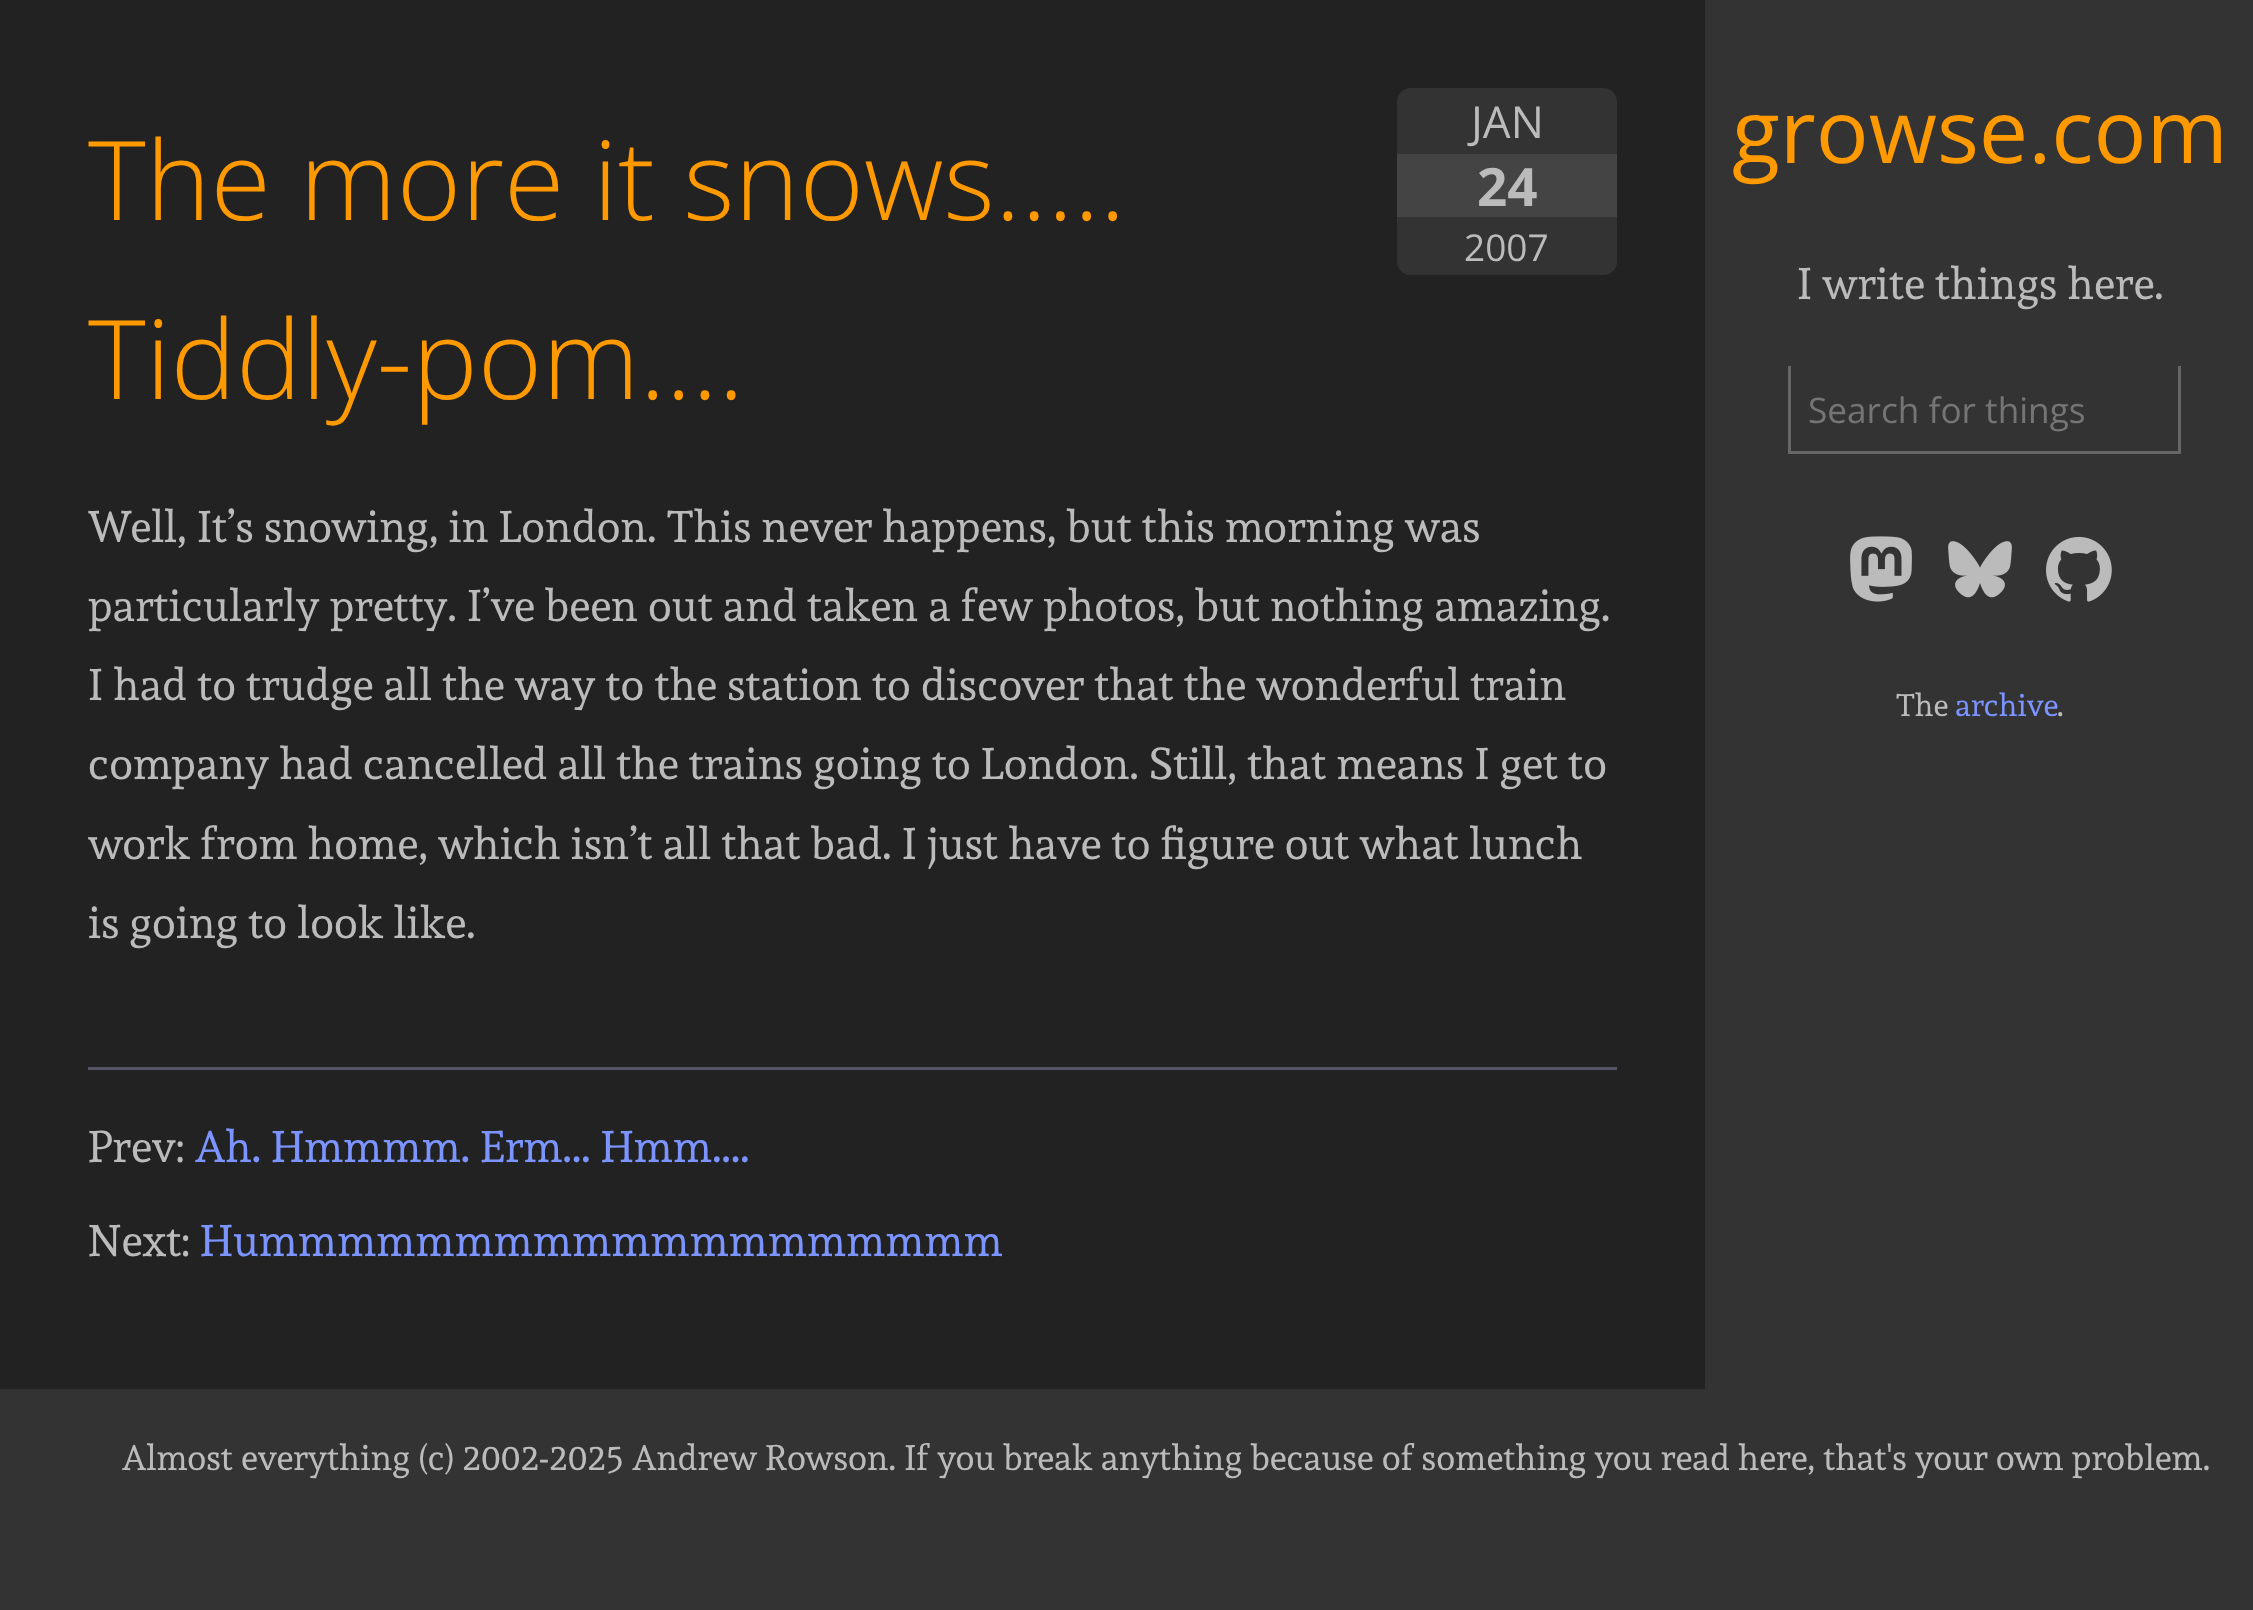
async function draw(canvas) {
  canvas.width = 2253
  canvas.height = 1610
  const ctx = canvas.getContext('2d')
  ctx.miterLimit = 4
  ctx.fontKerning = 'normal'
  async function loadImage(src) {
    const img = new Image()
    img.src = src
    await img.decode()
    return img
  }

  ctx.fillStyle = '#333'
  ctx.fillRect(0, 0, 2253, 1610)
  ctx.fillStyle = '#222'
  ctx.fillRect(0, 0, 1705, 1389)
  ctx.font = '300 110px Open Sans'
  ctx.fillStyle = '#f90'
  ctx.fillText('The more it snows.....', 88, 220)
  ctx.fillText('Tiddly-pom....', 88, 399)
  ctx.fillStyle = '#333'
  ctx.beginPath()
  ctx.roundRect(1397, 88, 220, 187, 14)
  ctx.fill()
  ctx.font = '44px Open Sans'
  ctx.fillStyle = '#bbb'
  ctx.fillText('JAN', 1471, 138)
  ctx.fillStyle = '#444'
  ctx.fillRect(1397, 154, 220, 63)
  ctx.font = 'bold 53px Open Sans'
  ctx.fillStyle = '#bbb'
  ctx.fillText('24', 1477, 206)
  ctx.fillStyle = '#333'
  ctx.beginPath()
  ctx.roundRect(1397, 217, 220, 58, [0, 0, 14, 14])
  ctx.fill()
  ctx.font = '37px Open Sans'
  ctx.fillStyle = '#bbb'
  ctx.fillText('2007', 1464, 261)
  ctx.fillStyle = '#556'
  ctx.fillRect(88, 1067, 1529, 3)
  ctx.font = '44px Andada'
  ctx.fillStyle = '#bbb'
  ctx.fillText('Well, It’s snowing, in London. This never happens, but this morning was', 88, 542)
  ctx.fillText('particularly pretty. I’ve been out and taken a few photos, but nothing amazing.', 88, 621)
  ctx.fillText('I had to trudge all the way to the station to discover that the wonderful train', 88, 700)
  ctx.fillText('company had cancelled all the trains going to London. Still, that means I get to', 88, 779)
  ctx.fillText('work from home, which isn’t all that bad. I just have to figure out what lunch', 88, 859)
  ctx.fillText('is going to look like.', 88, 938)
  ctx.fillText('Prev:', 88, 1162)
  ctx.fillStyle = '#7b94ff'
  ctx.fillText('Ah. Hmmmm. Erm... Hmm....', 195, 1162)
  ctx.fillStyle = '#bbb'
  ctx.fillText('Next:', 88, 1256)
  ctx.fillStyle = '#7b94ff'
  ctx.fillText('Hummmmmmmmmmmmmmmmmmm', 200, 1256)
  ctx.font = '88px Open Sans'
  ctx.fillStyle = '#f90'
  ctx.fillText('growse.com', 1732, 163)
  ctx.font = '44px Andada'
  ctx.fillStyle = '#bbb'
  ctx.fillText('I write things here.', 1797, 299)
  ctx.fillStyle = '#666'
  ctx.fillRect(2178, 366, 3, 88)
  ctx.fillRect(1788, 451, 393, 3)
  ctx.fillRect(1788, 366, 3, 88)
  ctx.font = '35.2px Open Sans'
  ctx.fillStyle = '#757575'
  ctx.fillText('Search for things', 1808, 423)
  ctx.drawImage(await loadImage('image0.png'), 1850, 536, 62, 66)
  ctx.drawImage(await loadImage('image1.png'), 1948, 541, 64, 57)
  ctx.drawImage(await loadImage('image2.png'), 2046, 536, 66, 66)
  ctx.font = '31px Andada'
  ctx.fillStyle = '#bbb'
  ctx.fillText('The', 1896, 716)
  ctx.fillStyle = '#7b94ff'
  ctx.fillText('archive', 1955, 716)
  ctx.fillStyle = '#bbb'
  ctx.fillText('.', 2057, 716)
  ctx.font = '35.2px Andada'
  ctx.fillText('Almost everything (c) 2002-2025 Andrew Rowson. If you break anything because of something you read here, that\'s your own problem.', 122, 1470)
}

draw(document.querySelector('canvas'))
